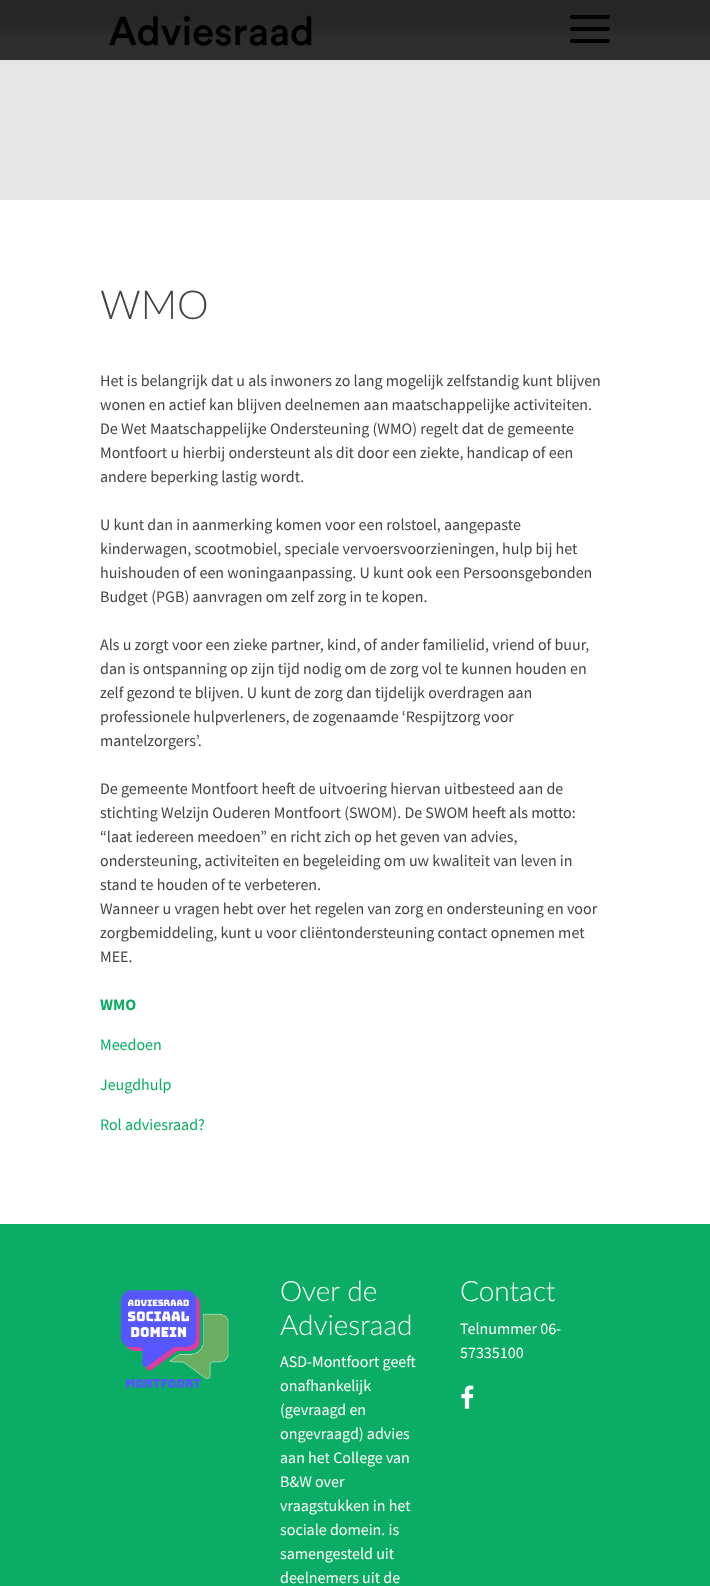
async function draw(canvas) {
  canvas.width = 710
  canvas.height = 1586
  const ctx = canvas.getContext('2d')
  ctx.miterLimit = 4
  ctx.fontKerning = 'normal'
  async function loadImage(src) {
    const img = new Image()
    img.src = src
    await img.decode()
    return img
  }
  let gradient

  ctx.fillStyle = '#fff'
  ctx.fillRect(0, 0, 710, 1586)
  ctx.fillStyle = '#333'
  ctx.fillRect(0, 0, 710, 60)
  gradient = ctx.createLinearGradient(355, 0, 355, 200)
  gradient.addColorStop(0.1, '#00000040')
  gradient.addColorStop(0.2, '#0000001a')
  ctx.fillStyle = gradient
  ctx.fillRect(0, 0, 710, 200)
  ctx.drawImage(await loadImage('image0.png'), 109, 15, 203, 31)
  ctx.fillStyle = '#000'
  ctx.beginPath()
  ctx.roundRect(570, 27, 40, 4, 2)
  ctx.fill()
  ctx.beginPath()
  ctx.roundRect(570, 15, 40, 4, 2)
  ctx.fill()
  ctx.beginPath()
  ctx.roundRect(570, 39, 40, 4, 2)
  ctx.fill()
  ctx.font = '300 40px Lato'
  ctx.fillStyle = '#444'
  ctx.fillText('WMO', 100, 319)
  ctx.font = '16px Source Sans Pro'
  ctx.fillText('Het is belangrijk dat u als inwoners zo lang mogelijk zelfstandig kunt blijven', 100, 386)
  ctx.fillText('wonen en actief kan blijven deelnemen aan maatschappelijke activiteiten.', 100, 410)
  ctx.fillText('De Wet Maatschappelijke Ondersteuning (WMO) regelt dat de gemeente', 100, 434)
  ctx.fillText('Montfoort u hierbij ondersteunt als dit door een ziekte, handicap of een', 100, 458)
  ctx.fillText('andere beperking lastig wordt.', 100, 482)
  ctx.fillText('U kunt dan in aanmerking komen voor een rolstoel, aangepaste', 100, 530)
  ctx.fillText('kinderwagen, scootmobiel, speciale vervoersvoorzieningen, hulp bij het', 100, 554)
  ctx.fillText('huishouden of een woningaanpassing. U kunt ook een Persoonsgebonden', 100, 578)
  ctx.fillText('Budget (PGB) aanvragen om zelf zorg in te kopen.', 100, 602)
  ctx.fillText('Als u zorgt voor een zieke partner, kind, of ander familielid, vriend of buur,', 100, 650)
  ctx.fillText('dan is ontspanning op zijn tijd nodig om de zorg vol te kunnen houden en', 100, 674)
  ctx.fillText('zelf gezond te blijven. U kunt de zorg dan tijdelijk overdragen aan', 100, 698)
  ctx.fillText('professionele hulpverleners, de zogenaamde ‘Respijtzorg voor', 100, 722)
  ctx.fillText('mantelzorgers’.', 100, 746)
  ctx.fillText('De gemeente Montfoort heeft de uitvoering hiervan uitbesteed aan de', 100, 794)
  ctx.fillText('stichting Welzijn Ouderen Montfoort (SWOM). De SWOM heeft als motto:', 100, 818)
  ctx.fillText('“laat iedereen meedoen” en richt zich op het geven van advies,', 100, 842)
  ctx.fillText('ondersteuning, activiteiten en begeleiding om uw kwaliteit van leven in', 100, 866)
  ctx.fillText('stand te houden of te verbeteren.', 100, 890)
  ctx.fillText('Wanneer u vragen hebt over het regelen van zorg en ondersteuning en voor', 100, 914)
  ctx.fillText('zorgbemiddeling, kunt u voor cliëntondersteuning contact opnemen met', 100, 938)
  ctx.fillText('MEE.', 100, 962)
  ctx.font = 'bold 16px Source Sans Pro'
  ctx.fillStyle = '#0aad63'
  ctx.fillText('WMO', 100, 1010)
  ctx.font = '16px Source Sans Pro'
  ctx.fillText('Meedoen', 100, 1050)
  ctx.fillText('Jeugdhulp', 100, 1090)
  ctx.fillText('Rol adviesraad?', 100, 1130)
  ctx.fillRect(0, 1224, 710, 362)
  ctx.drawImage(await loadImage('image1.png'), 121, 1290, 108, 98)
  ctx.font = '300 28px Lato'
  ctx.fillStyle = '#fff'
  ctx.fillText('Over de', 280, 1301)
  ctx.fillText('Adviesraad', 280, 1335)
  ctx.font = '16px Source Sans Pro'
  ctx.fillText('ASD-Montfoort geeft', 280, 1367)
  ctx.fillText('onafhankelijk', 280, 1391)
  ctx.fillText('(gevraagd en', 280, 1415)
  ctx.fillText('ongevraagd) advies', 280, 1439)
  ctx.fillText('aan het College van', 280, 1463)
  ctx.fillText('B&W over', 280, 1487)
  ctx.fillText('vraagstukken in het', 280, 1511)
  ctx.fillText('sociale domein. is', 280, 1535)
  ctx.fillText('samengesteld uit', 280, 1559)
  ctx.fillText('deelnemers uit de', 280, 1583)
  ctx.font = '300 28px Lato'
  ctx.fillText('Contact', 460, 1301)
  ctx.font = '16px Source Sans Pro'
  ctx.fillText('Telnummer 06-', 460, 1334)
  ctx.fillText('57335100', 460, 1358)
  ctx.drawImage(await loadImage('image2.png'), 461, 1385, 13, 24)
}

draw(document.querySelector('canvas'))
